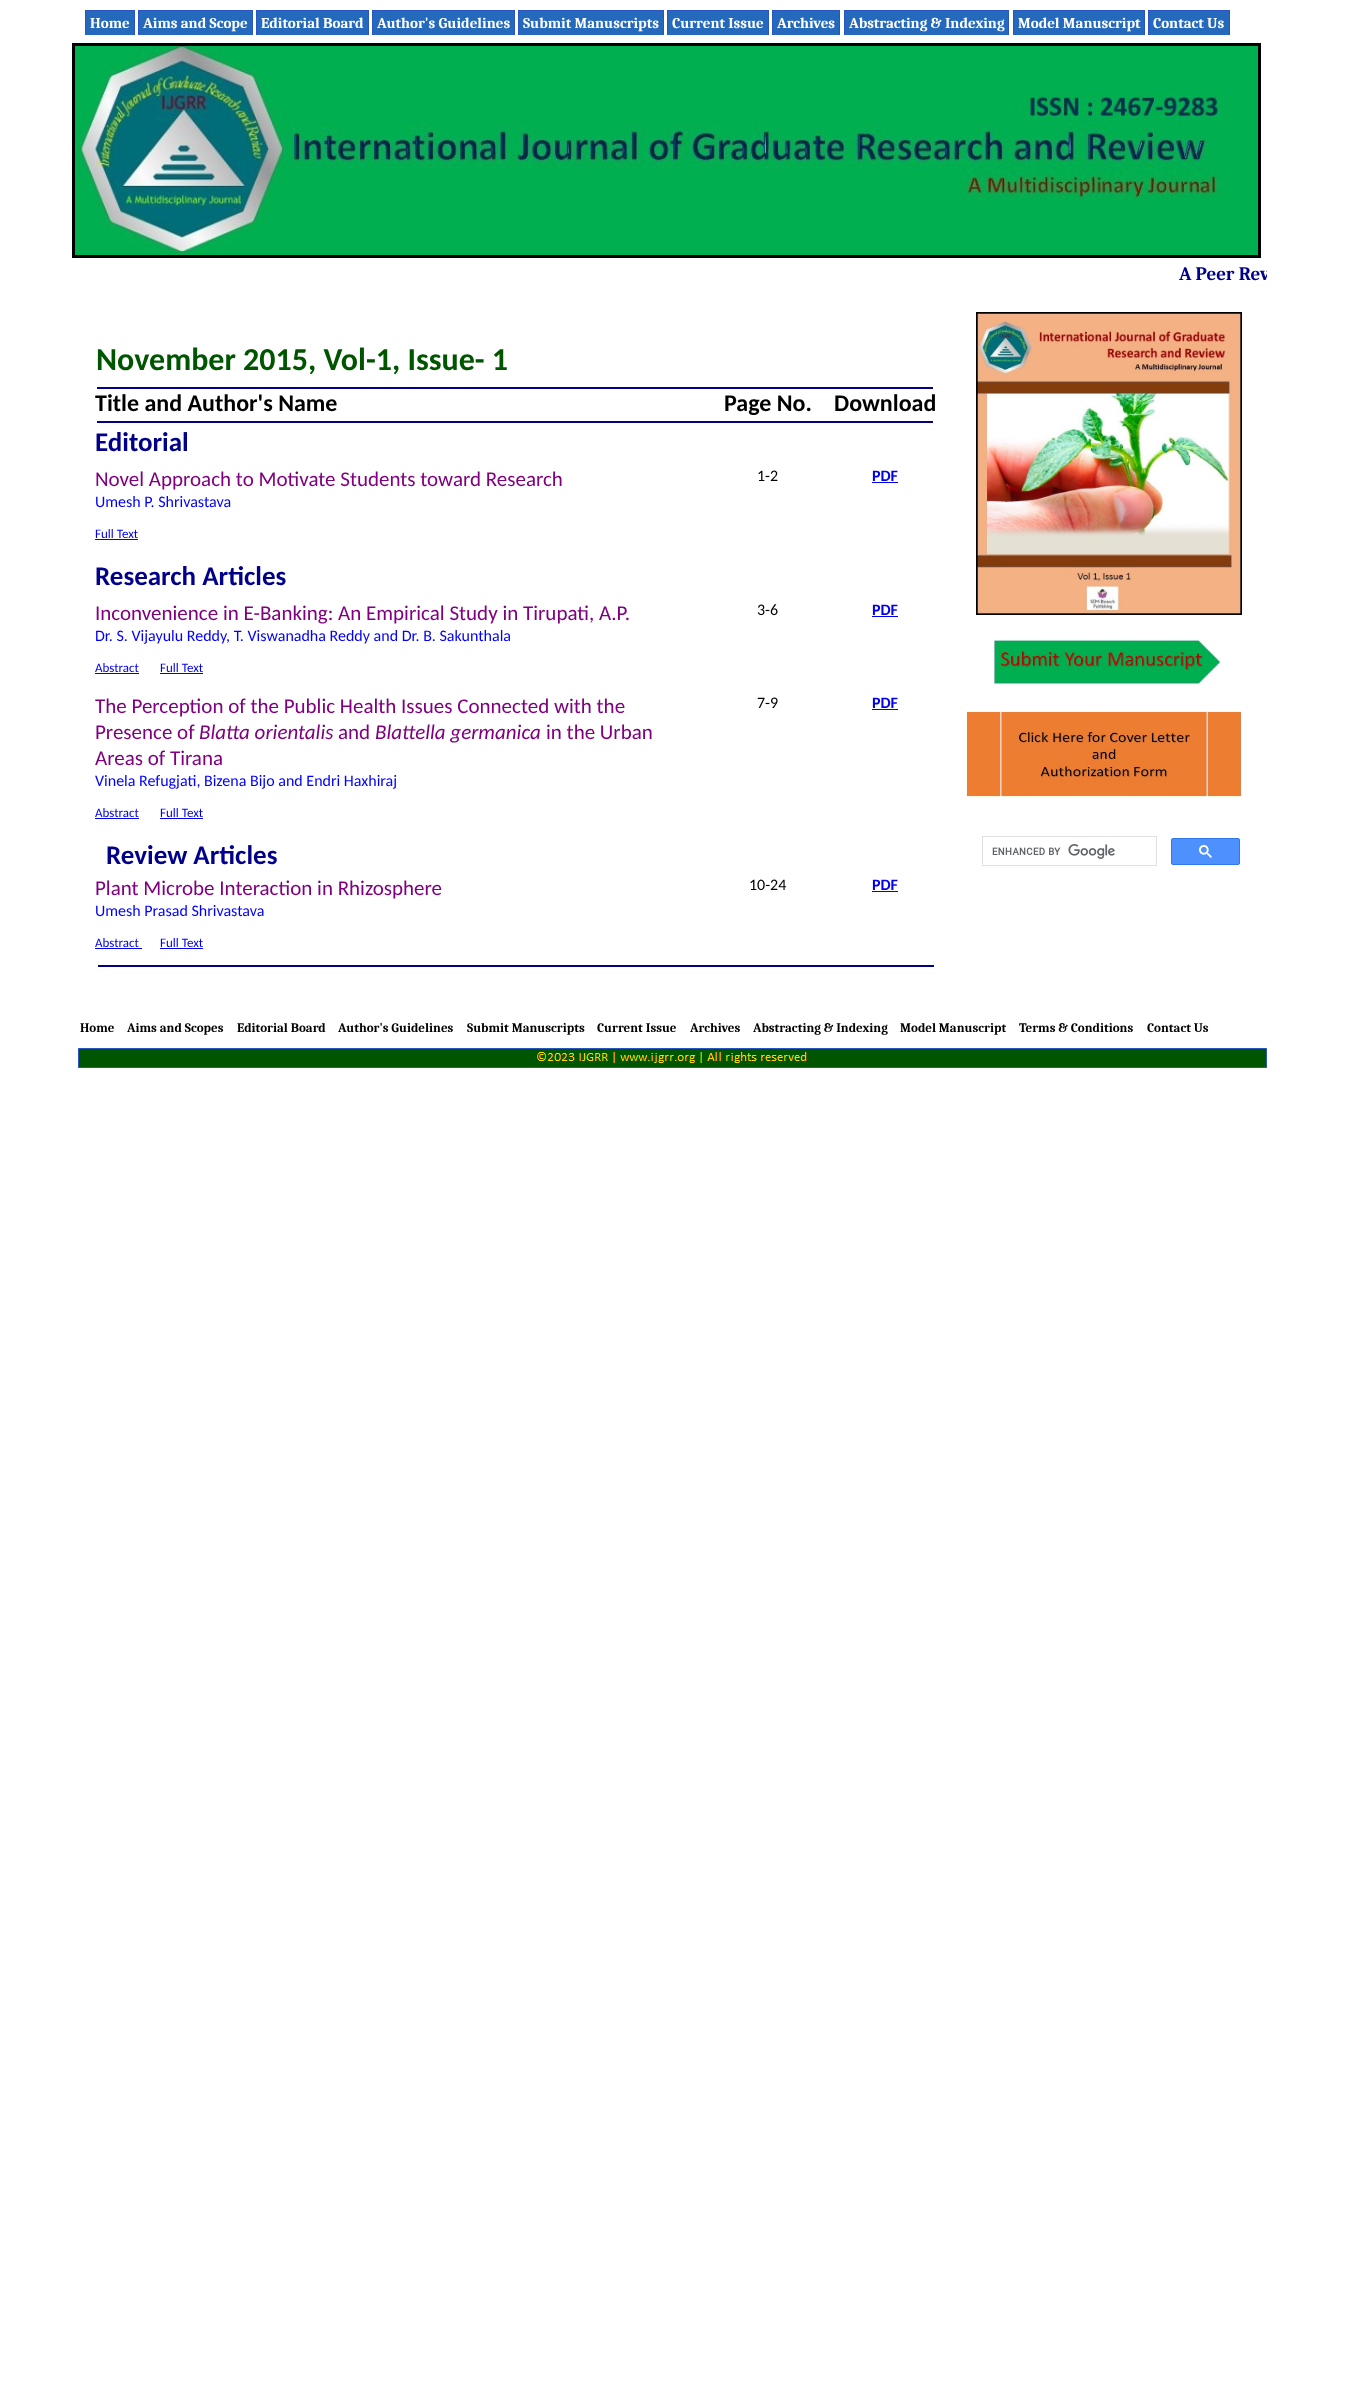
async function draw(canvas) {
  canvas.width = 1358
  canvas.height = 2388
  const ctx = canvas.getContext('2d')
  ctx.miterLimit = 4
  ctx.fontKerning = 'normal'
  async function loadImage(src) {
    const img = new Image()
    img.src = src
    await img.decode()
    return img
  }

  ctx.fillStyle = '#fff'
  ctx.fillRect(0, 0, 1358, 2388)
  ctx.fillStyle = '#2569bc'
  ctx.fillRect(86, 11, 48, 24)
  ctx.font = 'bold 15px Caladea'
  ctx.fillStyle = '#fff'
  ctx.fillText('Home', 90, 28)
  ctx.fillStyle = '#2a54c2'
  ctx.fillRect(85, 10, 50, 1)
  ctx.fillRect(134, 10, 1, 25)
  ctx.fillRect(85, 10, 1, 25)
  ctx.fillStyle = '#2569bc'
  ctx.fillRect(139, 11, 113, 24)
  ctx.fillStyle = '#fff'
  ctx.fillText('Aims and Scope', 143, 28)
  ctx.fillStyle = '#2a54c2'
  ctx.fillRect(138, 10, 115, 1)
  ctx.fillRect(252, 10, 1, 25)
  ctx.fillRect(138, 10, 1, 25)
  ctx.fillStyle = '#2569bc'
  ctx.fillRect(257, 11, 111, 24)
  ctx.fillStyle = '#fff'
  ctx.fillText('Editorial Board', 261, 28)
  ctx.fillStyle = '#2a54c2'
  ctx.fillRect(256, 10, 113, 1)
  ctx.fillRect(368, 10, 1, 25)
  ctx.fillRect(256, 10, 1, 25)
  ctx.fillStyle = '#2569bc'
  ctx.fillRect(373, 11, 141, 24)
  ctx.fillStyle = '#fff'
  ctx.fillText('Author\'s Guidelines', 377, 28)
  ctx.fillStyle = '#2a54c2'
  ctx.fillRect(372, 10, 143, 1)
  ctx.fillRect(514, 10, 1, 25)
  ctx.fillRect(372, 10, 1, 25)
  ctx.fillStyle = '#2569bc'
  ctx.fillRect(519, 11, 144, 24)
  ctx.fillStyle = '#fff'
  ctx.fillText('Submit Manuscripts', 523, 28)
  ctx.fillStyle = '#2a54c2'
  ctx.fillRect(518, 10, 146, 1)
  ctx.fillRect(663, 10, 1, 25)
  ctx.fillRect(518, 10, 1, 25)
  ctx.fillStyle = '#2569bc'
  ctx.fillRect(668, 11, 100, 24)
  ctx.fillStyle = '#fff'
  ctx.fillText('Current Issue', 672, 28)
  ctx.fillStyle = '#2a54c2'
  ctx.fillRect(667, 10, 102, 1)
  ctx.fillRect(768, 10, 1, 25)
  ctx.fillRect(667, 10, 1, 25)
  ctx.fillStyle = '#2569bc'
  ctx.fillRect(773, 11, 66, 24)
  ctx.fillStyle = '#fff'
  ctx.fillText('Archives', 777, 28)
  ctx.fillStyle = '#2a54c2'
  ctx.fillRect(772, 10, 68, 1)
  ctx.fillRect(839, 10, 1, 25)
  ctx.fillRect(772, 10, 1, 25)
  ctx.fillStyle = '#2569bc'
  ctx.fillRect(845, 11, 163, 24)
  ctx.fillStyle = '#fff'
  ctx.fillText('Abstracting & Indexing', 849, 28)
  ctx.fillStyle = '#2a54c2'
  ctx.fillRect(844, 10, 165, 1)
  ctx.fillRect(1008, 10, 1, 25)
  ctx.fillRect(844, 10, 1, 25)
  ctx.fillStyle = '#2569bc'
  ctx.fillRect(1014, 11, 130, 24)
  ctx.fillStyle = '#fff'
  ctx.fillText('Model Manuscript', 1018, 28)
  ctx.fillStyle = '#2a54c2'
  ctx.fillRect(1013, 10, 132, 1)
  ctx.fillRect(1144, 10, 1, 25)
  ctx.fillRect(1013, 10, 1, 25)
  ctx.fillStyle = '#2569bc'
  ctx.fillRect(1149, 11, 80, 24)
  ctx.fillStyle = '#fff'
  ctx.fillText('Contact Us', 1153, 28)
  ctx.fillStyle = '#2a54c2'
  ctx.fillRect(1148, 10, 82, 1)
  ctx.fillRect(1229, 10, 1, 25)
  ctx.fillRect(1148, 10, 1, 25)
  ctx.strokeStyle = '#000'
  ctx.lineWidth = 3
  ctx.strokeRect(73.5, 44.5, 1186, 212)
  ctx.drawImage(await loadImage('image0.png'), 75, 46, 1183, 209)
  ctx.save()
  ctx.beginPath()
  ctx.rect(78, 263, 1189, 28)
  ctx.clip()
  ctx.font = 'bold 19px Caladea'
  ctx.fillStyle = '#00008b'
  ctx.fillText('A Peer Rev', 1179, 280)
  ctx.restore()
  ctx.font = 'bold 32px Carlito'
  ctx.fillStyle = '#050'
  ctx.fillText('November 2015, Vol-1, Issue- 1', 96, 370)
  ctx.drawImage(await loadImage('image1.png'), 976, 312, 266, 303)
  ctx.fillStyle = '#00008b'
  ctx.fillRect(97, 387, 836, 2)
  ctx.font = 'bold 24px Carlito'
  ctx.fillStyle = '#000'
  ctx.fillText('Title and Author\'s Name', 95, 411)
  ctx.fillText('Page No.', 724, 411)
  ctx.fillText('Download', 834, 411)
  ctx.font = 'bold 27px Carlito'
  ctx.fillStyle = '#00008b'
  ctx.fillText('Editorial', 95, 451)
  ctx.font = '21px Carlito'
  ctx.fillStyle = '#800080'
  ctx.fillText('Novel Approach to Motivate Students toward Research', 95, 486)
  ctx.font = '16px Carlito'
  ctx.fillStyle = '#00f'
  ctx.fillText('Umesh P. Shrivastava', 95, 507)
  ctx.font = '13px Carlito'
  ctx.fillStyle = '#00e'
  ctx.fillText('Full Text', 95, 538)
  ctx.fillRect(95, 539, 43, 1)
  ctx.font = '16px Carlito'
  ctx.fillStyle = '#000'
  ctx.fillText('1-2', 757, 481)
  ctx.font = 'bold 16px Carlito'
  ctx.fillStyle = '#00e'
  ctx.fillText('PDF', 872, 481)
  ctx.fillRect(872, 482, 26, 1)
  ctx.font = 'bold 27px Carlito'
  ctx.fillStyle = '#00008b'
  ctx.fillText('Research Articles', 95, 585)
  ctx.font = '21px Carlito'
  ctx.fillStyle = '#800080'
  ctx.fillText('Inconvenience in E-Banking: An Empirical Study in Tirupati, A.P.', 95, 620)
  ctx.font = '16px Carlito'
  ctx.fillStyle = '#00f'
  ctx.fillText('Dr. S. Vijayulu Reddy, T. Viswanadha Reddy and Dr. B. Sakunthala', 95, 641)
  ctx.font = '13px Carlito'
  ctx.fillStyle = '#00e'
  ctx.fillText('Abstract', 95, 672)
  ctx.fillRect(95, 673, 44, 1)
  ctx.fillText('Full Text', 160, 672)
  ctx.fillRect(160, 673, 43, 1)
  ctx.font = '16px Carlito'
  ctx.fillStyle = '#000'
  ctx.fillText('3-6', 757, 615)
  ctx.font = 'bold 16px Carlito'
  ctx.fillStyle = '#00e'
  ctx.fillText('PDF', 872, 615)
  ctx.fillRect(872, 616, 26, 1)
  ctx.font = '21px Carlito'
  ctx.fillStyle = '#800080'
  ctx.fillText('The Perception of the Public Health Issues Connected with the', 95, 713)
  ctx.fillText('Presence of', 95, 739)
  ctx.font = 'italic 21px Carlito'
  ctx.fillText('Blatta orientalis', 199, 739)
  ctx.font = '21px Carlito'
  ctx.fillText('and', 338, 739)
  ctx.font = 'italic 21px Carlito'
  ctx.fillText('Blattella germanica', 375, 739)
  ctx.font = '21px Carlito'
  ctx.fillText('in the Urban', 546, 739)
  ctx.fillText('Areas of Tirana', 95, 765)
  ctx.font = '16px Carlito'
  ctx.fillStyle = '#00f'
  ctx.fillText('Vinela Refugjati, Bizena Bijo and Endri Haxhiraj', 95, 786)
  ctx.font = '13px Carlito'
  ctx.fillStyle = '#00e'
  ctx.fillText('Abstract', 95, 817)
  ctx.fillRect(95, 818, 44, 1)
  ctx.fillText('Full Text', 160, 817)
  ctx.fillRect(160, 818, 43, 1)
  ctx.font = '16px Carlito'
  ctx.fillStyle = '#000'
  ctx.fillText('7-9', 757, 708)
  ctx.font = 'bold 16px Carlito'
  ctx.fillStyle = '#00e'
  ctx.fillText('PDF', 872, 708)
  ctx.fillRect(872, 709, 26, 1)
  ctx.font = 'bold 27px Carlito'
  ctx.fillStyle = '#00008b'
  ctx.fillText('Review Articles', 106, 864)
  ctx.font = '21px Carlito'
  ctx.fillStyle = '#800080'
  ctx.fillText('Plant Microbe Interaction in Rhizosphere', 95, 895)
  ctx.font = '16px Carlito'
  ctx.fillStyle = '#00f'
  ctx.fillText('Umesh Prasad Shrivastava', 95, 916)
  ctx.font = '13px Carlito'
  ctx.fillStyle = '#00e'
  ctx.fillText('Abstract', 95, 947)
  ctx.fillRect(95, 948, 47, 1)
  ctx.fillText('Full Text', 160, 947)
  ctx.fillRect(160, 948, 43, 1)
  ctx.font = '16px Carlito'
  ctx.fillStyle = '#000'
  ctx.fillText('10-24', 749, 890)
  ctx.font = 'bold 16px Carlito'
  ctx.fillStyle = '#00e'
  ctx.fillText('PDF', 872, 890)
  ctx.fillRect(872, 891, 26, 1)
  ctx.fillStyle = '#00008b'
  ctx.fillRect(97, 421, 836, 2)
  ctx.drawImage(await loadImage('image2.png'), 993, 639, 228, 46)
  ctx.drawImage(await loadImage('image3.png'), 966, 711, 276, 86)
  ctx.strokeStyle = '#dfe1e5'
  ctx.lineWidth = 1
  ctx.strokeRect(982.5, 836.5, 174, 29)
  ctx.drawImage(await loadImage('image4.png'), 992, 844, 123, 15)
  ctx.fillStyle = '#4d90fe'
  ctx.beginPath()
  ctx.roundRect(1171.5, 838.5, 68, 26, 1.5)
  ctx.fill()
  ctx.strokeStyle = '#3079ed'
  ctx.stroke()
  ctx.drawImage(await loadImage('image5.png'), 1199, 845, 13, 13)
  ctx.fillStyle = '#00008b'
  ctx.fillRect(98, 965, 836, 2)
  ctx.font = 'bold 13px Caladea'
  ctx.fillStyle = '#000'
  ctx.fillText('Home', 80, 1032)
  ctx.fillText('Aims and Scopes', 127, 1032)
  ctx.fillText('Editorial Board', 237, 1032)
  ctx.fillText('Author\'s Guidelines', 338, 1032)
  ctx.fillText('Submit Manuscripts', 467, 1032)
  ctx.fillText('Current Issue', 597, 1032)
  ctx.fillText('Archives', 690, 1032)
  ctx.fillText('Abstracting & Indexing', 753, 1032)
  ctx.fillText('Model Manuscript', 900, 1032)
  ctx.fillText('Terms & Conditions', 1019, 1032)
  ctx.fillText('Contact Us', 1147, 1032)
  ctx.drawImage(await loadImage('image6.png'), 78, 1048, 1189, 20)
}

draw(document.querySelector('canvas'))
